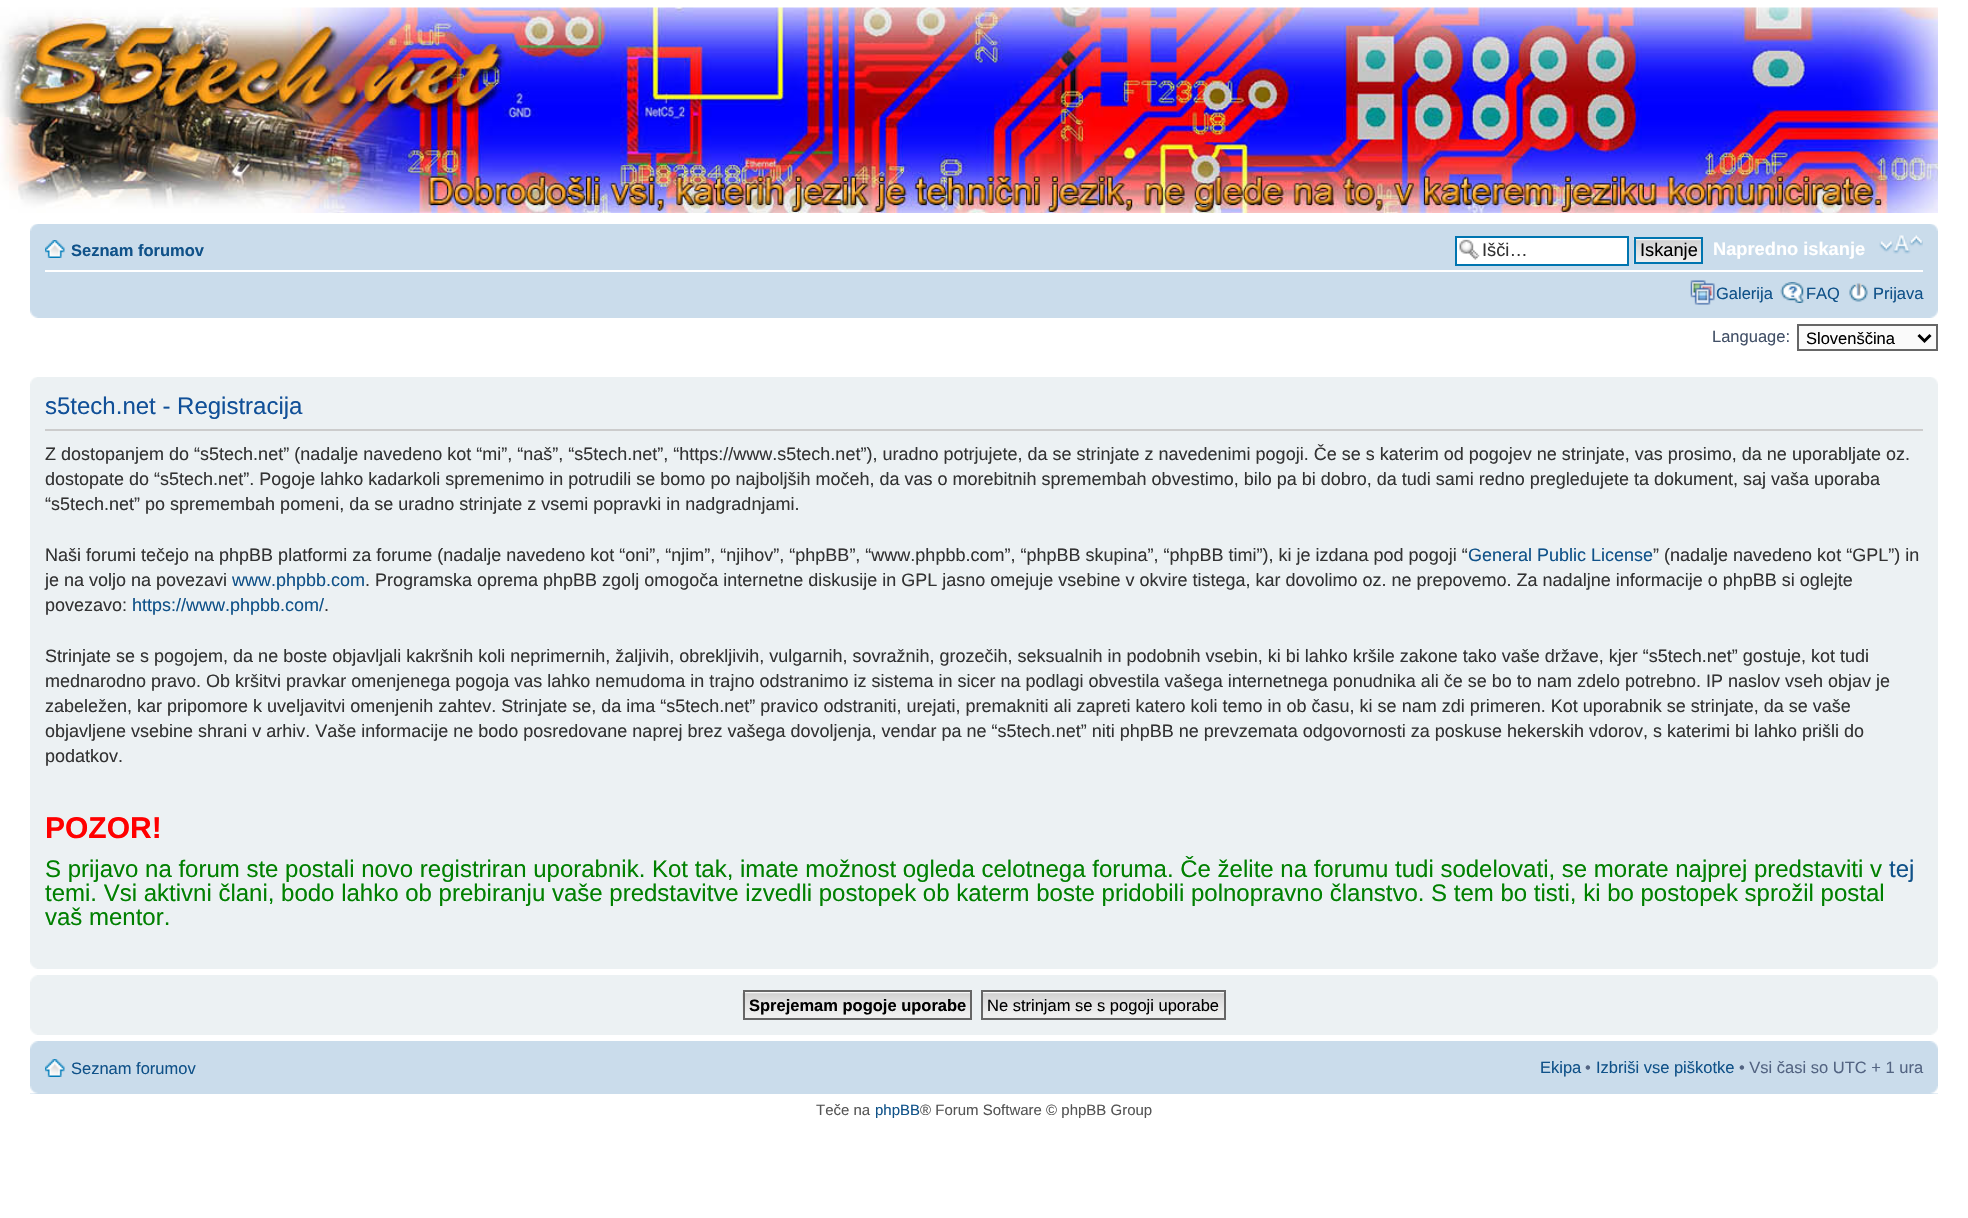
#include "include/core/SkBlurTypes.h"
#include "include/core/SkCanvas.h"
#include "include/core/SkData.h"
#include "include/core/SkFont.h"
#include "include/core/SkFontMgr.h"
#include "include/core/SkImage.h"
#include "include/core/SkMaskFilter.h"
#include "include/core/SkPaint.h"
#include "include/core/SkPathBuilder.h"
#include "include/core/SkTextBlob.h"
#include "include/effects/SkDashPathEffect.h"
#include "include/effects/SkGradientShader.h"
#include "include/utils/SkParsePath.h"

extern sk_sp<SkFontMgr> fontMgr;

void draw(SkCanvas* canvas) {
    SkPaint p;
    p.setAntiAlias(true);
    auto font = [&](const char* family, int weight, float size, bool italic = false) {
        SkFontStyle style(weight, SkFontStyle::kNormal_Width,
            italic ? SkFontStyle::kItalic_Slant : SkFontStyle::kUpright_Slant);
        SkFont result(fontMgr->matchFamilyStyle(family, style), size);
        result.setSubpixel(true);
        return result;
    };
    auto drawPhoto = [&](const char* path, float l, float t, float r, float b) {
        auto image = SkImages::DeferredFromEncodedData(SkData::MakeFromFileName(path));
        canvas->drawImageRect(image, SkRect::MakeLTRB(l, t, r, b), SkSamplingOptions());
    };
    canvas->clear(0xFFFFFFFF);
    drawPhoto("media/1.png", 0, 7, 1938, 213);
    p.setColor(0xFFCADCEB);
    canvas->drawRect(SkRect::MakeLTRB(30, 224, 1938, 318), p);
    drawPhoto("media/2.png", 30, 224, 38, 231);
    drawPhoto("media/3.png", 1930, 224, 1938, 231);
    p.setColor(0xFFFFFFFF);
    canvas->drawRect(SkRect::MakeLTRB(45, 270, 1923, 272), p);
    drawPhoto("media/4.png", 45, 240, 65, 258);
    auto font1 = font("Liberation Sans", 700, 16.5f);
    p.setColor(0xFF105289);
    canvas->drawString("Seznam forumov", 71, 256, font1, p);
    p.setColor(0xFFFFFFFF);
    canvas->drawRect(SkRect::MakeLTRB(1457, 238, 1627, 264), p);
    drawPhoto("media/5.png", 1459, 239, 1480, 260);
    p.setStyle(SkPaint::kStroke_Style);
    p.setStrokeWidth(2);
    p.setColor(0xFF0075B0);
    canvas->drawRect(SkRect::MakeLTRB(1456, 237, 1628, 265), p);
    auto font2 = font("Liberation Sans", 400, 18.25f);
    p.setStyle(SkPaint::kFill_Style);
    p.setColor(0xFF333333);
    canvas->drawString("Išči…", 1482, 256, font2, p);
    drawPhoto("media/6.png", 1633, 238, 1701, 264);
    p.setStyle(SkPaint::kStroke_Style);
    p.setColor(0xFF0075B0);
    canvas->drawRect(SkRect::MakeLTRB(1635, 238, 1702, 263), p);
    p.setStyle(SkPaint::kFill_Style);
    p.setColor(0xFF000000);
    canvas->drawString("Iskanje", 1640, 256, font2, p);
    auto font3 = font("Liberation Sans", 700, 18.25f);
    p.setColor(0xFFFFFFFF);
    canvas->drawString("Napredno iskanje", 1713, 255, font3, p);
    drawPhoto("media/7.png", 1879, 235, 1923, 254);
    drawPhoto("media/8.png", 1690, 280, 1715, 305);
    auto font4 = font("Liberation Sans", 400, 16.5f);
    p.setColor(0xFF105289);
    canvas->drawString("Galerija", 1716, 299, font4, p);
    drawPhoto("media/9.png", 1780, 282, 1805, 303);
    canvas->drawString("FAQ", 1806, 299, font4, p);
    drawPhoto("media/10.png", 1849, 283, 1868, 302);
    canvas->drawString("Prijava", 1873, 299, font4, p);
    drawPhoto("media/11.png", 30, 310, 38, 318);
    drawPhoto("media/12.png", 1930, 310, 1938, 318);
    p.setColor(0xFF425067);
    canvas->drawString("Language:", 1712, 342, font4, p);
    p.setColor(0xFFFAFAFA);
    canvas->drawRect(SkRect::MakeLTRB(1798, 325, 1937, 350), p);
    p.setStyle(SkPaint::kStroke_Style);
    p.setColor(0xFF666666);
    canvas->drawRect(SkRect::MakeLTRB(1798, 325, 1937, 350), p);
    p.setStrokeWidth(3);
    p.setColor(0xFF000000);
    canvas->drawPath(SkPathBuilder().moveTo(1918.5f, 335).lineTo(1924.5f, 341).lineTo(1930.5f, 335).detach(), p);
    p.setStyle(SkPaint::kFill_Style);
    canvas->drawString("Slovenščina", 1806, 344, font4, p);
    p.setColor(0xFFECF1F3);
    canvas->drawRect(SkRect::MakeLTRB(30, 377, 1938, 969), p);
    drawPhoto("media/13.png", 30, 377, 37, 384);
    drawPhoto("media/14.png", 1931, 377, 1938, 384);
    p.setColor(0xFFCCCCCC);
    canvas->drawRect(SkRect::MakeLTRB(45, 429, 1923, 431), p);
    auto font5 = font("Liberation Sans", 400, 24);
    p.setColor(0xFF115098);
    canvas->drawString("s5tech.net - Registracija", 45, 414, font5, p);
    auto font6 = font("Liberation Sans", 400, 18);
    p.setColor(0xFF333333);
    {
        const struct { const char* s; float x, y; } items[] = {
            {"Z dostopanjem do “s5tech.net” (nadalje navedeno kot “mi”, “naš”, “s5tech.net”, “https://www.s5tech.net”), uradno potrjujete, da se strinjate z navedenimi pogoji. Če se s katerim od pogojev ne strinjate, vas prosimo, da ne uporabljate oz.", 45, 460},
            {"dostopate do “s5tech.net”. Pogoje lahko kadarkoli spremenimo in potrudili se bomo po najboljših močeh, da vas o morebitnih spremembah obvestimo, bilo pa bi dobro, da tudi sami redno pregledujete ta dokument, saj vaša uporaba", 45, 485},
            {"“s5tech.net” po spremembah pomeni, da se uradno strinjate z vsemi popravki in nadgradnjami.", 45, 510},
            {"Naši forumi tečejo na phpBB platformi za forume (nadalje navedeno kot “oni”, “njim”, “njihov”, “phpBB”, “www.phpbb.com”, “phpBB skupina”, “phpBB timi”), ki je izdana pod pogoji “", 45, 561},
        };
        for (auto [s, x, y] : items) {
            canvas->drawString(s, x, y, font6, p);
        }
    }
    p.setColor(0xFF105289);
    canvas->drawString("General Public License", 1468, 561, font6, p);
    p.setColor(0xFF333333);
    canvas->drawString("” (nadalje navedeno kot “GPL”) in", 1653, 561, font6, p);
    canvas->drawString("je na voljo na povezavi", 45, 586, font6, p);
    p.setColor(0xFF105289);
    canvas->drawString("www.phpbb.com", 232, 586, font6, p);
    p.setColor(0xFF333333);
    canvas->drawString(". Programska oprema phpBB zgolj omogoča internetne diskusije in GPL jasno omejuje vsebine v okvire tistega, kar dovolimo oz. ne prepovemo. Za nadaljne informacije o phpBB si oglejte", 365, 586, font6, p);
    canvas->drawString("povezavo:", 45, 611, font6, p);
    p.setColor(0xFF105289);
    canvas->drawString("https://www.phpbb.com/", 132, 611, font6, p);
    p.setColor(0xFF333333);
    {
        const struct { const char* s; float x, y; } items[] = {
            {".", 324, 611},
            {"Strinjate se s pogojem, da ne boste objavljali kakršnih koli neprimernih, žaljivih, obrekljivih, vulgarnih, sovražnih, grozečih, seksualnih in podobnih vsebin, ki bi lahko kršile zakone tako vaše države, kjer “s5tech.net” gostuje, kot tudi", 45, 662},
            {"mednarodno pravo. Ob kršitvi pravkar omenjenega pogoja vas lahko nemudoma in trajno odstranimo iz sistema in sicer na podlagi obvestila vašega internetnega ponudnika ali če se bo to nam zdelo potrebno. IP naslov vseh objav je", 45, 687},
            {"zabeležen, kar pripomore k uveljavitvi omenjenih zahtev. Strinjate se, da ima “s5tech.net” pravico odstraniti, urejati, premakniti ali zapreti katero koli temo in ob času, ki se nam zdi primeren. Kot uporabnik se strinjate, da se vaše", 45, 712},
            {"objavljene vsebine shrani v arhiv. Vaše informacije ne bodo posredovane naprej brez vašega dovoljenja, vendar pa ne “s5tech.net” niti phpBB ne prevzemata odgovornosti za poskuse hekerskih vdorov, s katerimi bi lahko prišli do", 45, 737},
            {"podatkov.", 45, 762},
        };
        for (auto [s, x, y] : items) {
            canvas->drawString(s, x, y, font6, p);
        }
    }
    auto font7 = font("Liberation Sans", 700, 30);
    p.setColor(0xFFFF0000);
    canvas->drawString("POZOR!", 45, 838, font7, p);
    p.setColor(0xFF008000);
    canvas->drawString("S prijavo na forum ste postali novo registriran uporabnik. Kot tak, imate možnost ogleda celotnega foruma. Če želite na forumu tudi sodelovati, se morate najprej predstaviti v", 45, 877, font5, p);
    p.setColor(0xFF105289);
    canvas->drawString("tej", 1889, 877, font5, p);
    p.setColor(0xFF008000);
    canvas->drawString("temi. Vsi aktivni člani, bodo lahko ob prebiranju vaše predstavitve izvedli postopek ob katerm boste pridobili polnopravno članstvo. S tem bo tisti, ki bo postopek sprožil postal", 45, 901, font5, p);
    canvas->drawString("vaš mentor.", 45, 925, font5, p);
    drawPhoto("media/15.png", 30, 962, 37, 969);
    drawPhoto("media/16.png", 1931, 962, 1938, 969);
    p.setColor(0xFFECF1F3);
    canvas->drawRect(SkRect::MakeLTRB(30, 975, 1938, 1035), p);
    drawPhoto("media/17.png", 30, 975, 37, 982);
    drawPhoto("media/18.png", 1931, 975, 1938, 982);
    drawPhoto("media/19.png", 742, 991, 970, 1020);
    p.setStyle(SkPaint::kStroke_Style);
    p.setStrokeWidth(2);
    p.setColor(0xFF666666);
    canvas->drawRect(SkRect::MakeLTRB(744, 991, 971, 1019), p);
    p.setStyle(SkPaint::kFill_Style);
    p.setColor(0xFF000000);
    canvas->drawString("Sprejemam pogoje uporabe", 749, 1011, font1, p);
    p.setColor(0xFFFAFAFA);
    canvas->drawRect(SkRect::MakeLTRB(983, 992, 1224, 993), p);
    drawPhoto("media/20.png", 983, 993, 1224, 1018);
    p.setStyle(SkPaint::kStroke_Style);
    p.setColor(0xFF666666);
    canvas->drawRect(SkRect::MakeLTRB(982, 991, 1225, 1019), p);
    p.setStyle(SkPaint::kFill_Style);
    p.setColor(0xFF000000);
    canvas->drawString("Ne strinjam se s pogoji uporabe", 987, 1011, font4, p);
    drawPhoto("media/15.png", 30, 1028, 37, 1035);
    drawPhoto("media/16.png", 1931, 1028, 1938, 1035);
    p.setColor(0xFFCADCEB);
    canvas->drawRect(SkRect::MakeLTRB(30, 1041, 1938, 1094), p);
    drawPhoto("media/21.png", 30, 1041, 38, 1049);
    drawPhoto("media/22.png", 1930, 1041, 1938, 1049);
    drawPhoto("media/4.png", 45, 1059, 65, 1077);
    p.setColor(0xFF105289);
    canvas->drawString("Seznam forumov", 71, 1074, font4, p);
    canvas->drawString("Ekipa", 1540, 1073, font4, p);
    p.setColor(0xFF536482);
    canvas->drawString("•", 1585, 1073, font4, p);
    p.setColor(0xFF105289);
    canvas->drawString("Izbriši vse piškotke", 1596, 1073, font4, p);
    p.setColor(0xFF536482);
    canvas->drawString("• Vsi časi so UTC + 1 ura", 1739, 1073, font4, p);
    drawPhoto("media/23.png", 30, 1086, 38, 1094);
    drawPhoto("media/24.png", 1930, 1086, 1938, 1094);
    auto font8 = font("Liberation Sans", 400, 15);
    p.setColor(0xFF555555);
    canvas->drawString("Teče na", 816, 1115, font8, p);
    p.setColor(0xFF105289);
    canvas->drawString("phpBB", 875, 1115, font8, p);
    p.setColor(0xFF555555);
    canvas->drawString("® Forum Software © phpBB Group", 920, 1115, font8, p);
}
